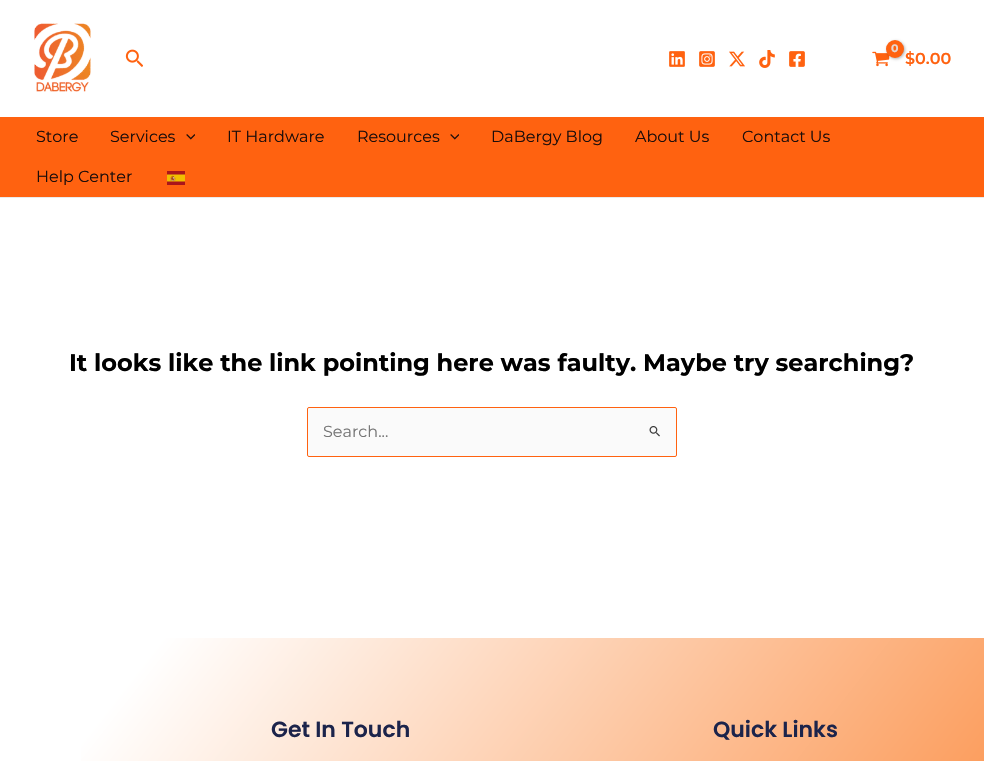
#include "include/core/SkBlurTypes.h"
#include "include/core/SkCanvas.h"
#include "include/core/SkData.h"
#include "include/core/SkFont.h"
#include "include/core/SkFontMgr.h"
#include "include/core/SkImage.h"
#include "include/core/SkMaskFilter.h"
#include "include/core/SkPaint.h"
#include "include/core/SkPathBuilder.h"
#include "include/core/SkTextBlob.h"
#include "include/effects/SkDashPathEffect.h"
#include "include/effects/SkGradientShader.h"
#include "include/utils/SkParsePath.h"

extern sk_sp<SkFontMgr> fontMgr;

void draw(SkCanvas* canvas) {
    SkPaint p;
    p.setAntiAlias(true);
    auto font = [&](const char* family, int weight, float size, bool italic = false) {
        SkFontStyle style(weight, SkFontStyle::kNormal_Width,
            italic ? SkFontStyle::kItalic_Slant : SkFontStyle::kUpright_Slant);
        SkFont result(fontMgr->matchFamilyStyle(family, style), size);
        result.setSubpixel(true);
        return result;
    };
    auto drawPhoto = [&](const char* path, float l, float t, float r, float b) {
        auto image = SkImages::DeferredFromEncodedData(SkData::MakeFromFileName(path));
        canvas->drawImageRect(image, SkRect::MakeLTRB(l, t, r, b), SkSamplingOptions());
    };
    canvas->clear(0xFFFFFFFF);
    drawPhoto("media/1.png", 34, 23, 91, 92);
    drawPhoto("media/2.png", 125, 49, 143, 67);
    drawPhoto("media/3.png", 669, 51, 685, 67);
    drawPhoto("media/4.png", 699, 51, 715, 67);
    drawPhoto("media/5.png", 729, 51, 745, 67);
    drawPhoto("media/6.png", 759, 50, 775, 68);
    drawPhoto("media/7.png", 789, 51, 805, 67);
    drawPhoto("media/8.png", 872, 51, 890, 67);
    p.setColor(0x4D000000);
    p.setMaskFilter(SkMaskFilter::MakeBlur(kNormal_SkBlurStyle, 1.5f));
    canvas->drawRoundRect(SkRect::MakeLTRB(887, 41, 905, 59), 9, 9, p);
    p.setMaskFilter(nullptr);
    p.setColor(0xFFFF6210);
    canvas->drawCircle(895, 49, 9, p);
    auto font1 = font("Montserrat", 700, 11);
    p.setColor(0xFFE5D7D1);
    canvas->drawString("0", 891, 52, font1, p);
    auto font2 = font("Montserrat", 600, 16);
    p.setColor(0xFFFF6210);
    canvas->drawString("$0.00", 905, 64, font2, p);
    canvas->drawRect(SkRect::MakeLTRB(0, 117, 984, 197), p);
    p.setColor(0xFFEAEAEA);
    canvas->drawRect(SkRect::MakeLTRB(0, 197, 984, 198), p);
    auto font3 = font("Montserrat", 400, 16);
    p.setColor(0xFF1C0D0A);
    canvas->drawString("Store", 36, 142, font3, p);
    canvas->drawString("Services", 110, 142, font3, p);
    drawPhoto("media/9.png", 186, 134, 195, 140);
    canvas->drawString("IT Hardware", 227, 142, font3, p);
    canvas->drawString("Resources", 357, 142, font3, p);
    drawPhoto("media/9.png", 450, 134, 459, 140);
    {
        const struct { const char* s; float x, y; } items[] = {
            {"DaBergy Blog", 491, 142},
            {"About Us", 635, 142},
            {"Contact Us", 742, 142},
            {"Help Center", 36, 182},
        };
        for (auto [s, x, y] : items) {
            canvas->drawString(s, x, y, font3, p);
        }
    }
    drawPhoto("media/10.png", 167, 171, 185, 185);
    auto font4 = font("Montserrat", 700, 24);
    p.setColor(0xFF000000);
    canvas->drawString("It looks like the link pointing here was faulty. Maybe try searching?", 69, 371, font4, p);
    p.setColor(0xFFFAFAFA);
    canvas->drawRoundRect(SkRect::MakeLTRB(307.5f, 407.5f, 676.5f, 456.5f), 1.5f, 1.5f, p);
    p.setStyle(SkPaint::kStroke_Style);
    p.setStrokeWidth(1);
    p.setColor(0xFFFF6210);
    canvas->drawRoundRect(SkRect::MakeLTRB(307.5f, 407.5f, 676.5f, 456.5f), 1.5f, 1.5f, p);
    p.setStyle(SkPaint::kFill_Style);
    p.setColor(0xFF757575);
    canvas->drawString("Search...", 323, 437, font3, p);
    drawPhoto("media/11.png", 649, 426, 660, 437);
    {
        const SkColor colors[] = {0xFFFFFFFF, 0xFFFA6602};
        const float stops[] = {0.1f, 1};
        const SkPoint ends[] = {{-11, 652}, {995, 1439}};
        p.setShader(SkGradientShader::MakeLinear(ends, colors, stops, 2, SkTileMode::kClamp));
        p.setAlpha(255);
    }
    canvas->drawRect(SkRect::MakeLTRB(81, 638, 984, 761), p);
    auto font5 = font("Poppins", 600, 22);
    p.setShader(nullptr);
    p.setColor(0xFF1C244B);
    canvas->drawString("Get In Touch", 271, 737, font5, p);
    canvas->drawString("Quick Links", 713, 737, font5, p);
}
